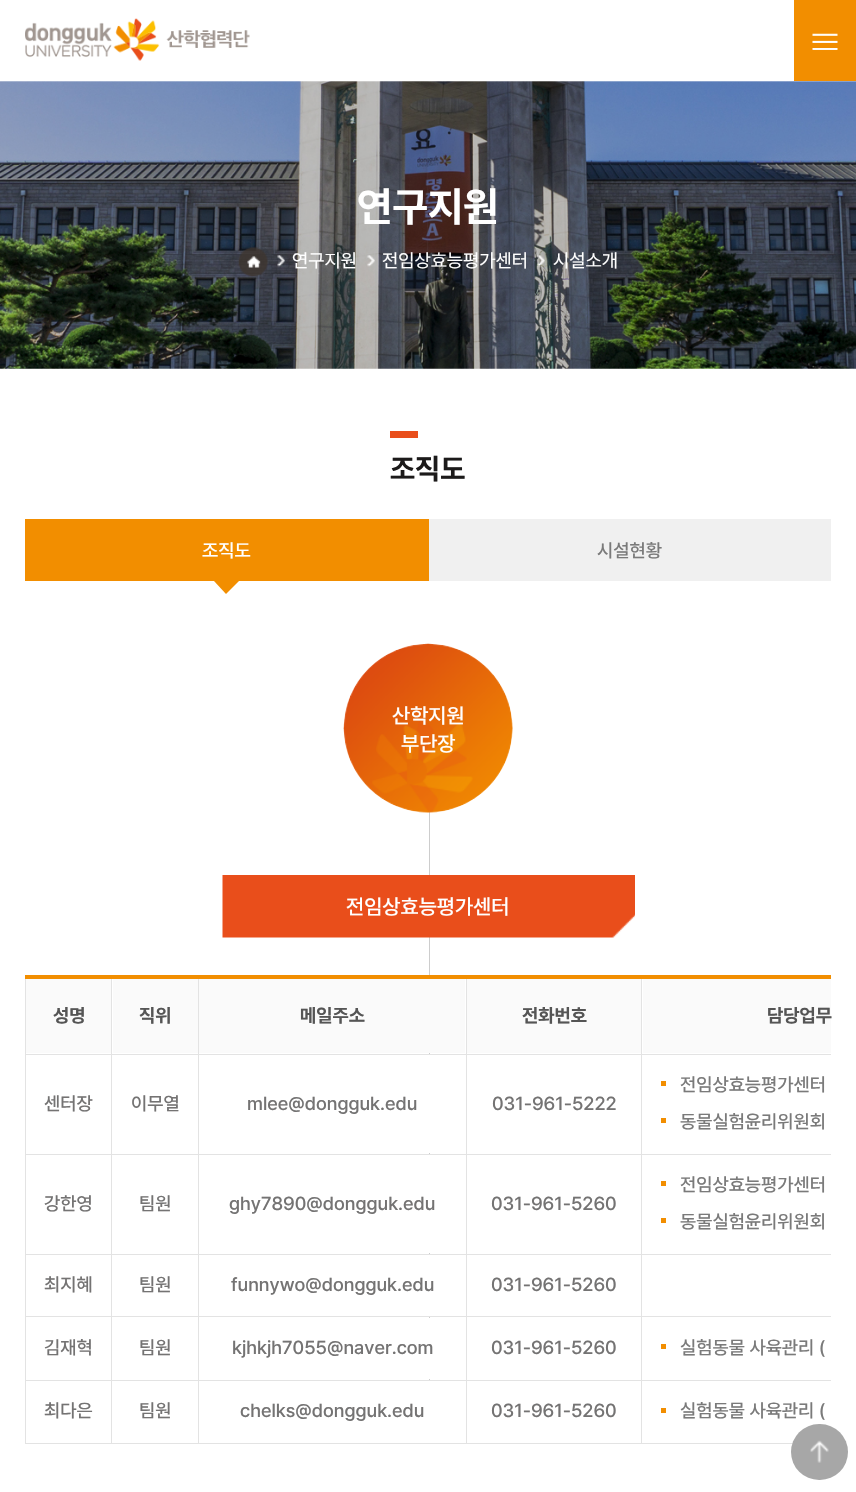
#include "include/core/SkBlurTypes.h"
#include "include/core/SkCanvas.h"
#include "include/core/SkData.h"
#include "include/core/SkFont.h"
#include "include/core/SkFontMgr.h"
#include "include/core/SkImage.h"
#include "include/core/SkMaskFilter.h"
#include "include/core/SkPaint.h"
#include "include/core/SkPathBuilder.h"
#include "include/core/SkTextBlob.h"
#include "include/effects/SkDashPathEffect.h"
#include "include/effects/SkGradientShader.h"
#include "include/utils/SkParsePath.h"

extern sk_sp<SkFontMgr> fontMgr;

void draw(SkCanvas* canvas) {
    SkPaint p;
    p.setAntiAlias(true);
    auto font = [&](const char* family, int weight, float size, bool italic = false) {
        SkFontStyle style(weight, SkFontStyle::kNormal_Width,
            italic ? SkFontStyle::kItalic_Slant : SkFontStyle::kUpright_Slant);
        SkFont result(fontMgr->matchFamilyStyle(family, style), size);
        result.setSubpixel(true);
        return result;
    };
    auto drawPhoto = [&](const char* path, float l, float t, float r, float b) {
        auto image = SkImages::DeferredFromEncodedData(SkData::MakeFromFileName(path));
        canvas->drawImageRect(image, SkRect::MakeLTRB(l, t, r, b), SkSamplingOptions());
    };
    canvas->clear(0xFFFFFFFF);
    drawPhoto("media/1.png", 25, 18, 250, 61);
    p.setColor(0xFFF28E00);
    canvas->drawRect(SkRect::MakeLTRB(794, 0, 856, 81), p);
    drawPhoto("media/2.png", 812, 33, 838, 50);
    drawPhoto("media/3.png", 0, 81, 856, 369);
    auto font1 = font("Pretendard", 700, 41);
    p.setColor(0xFFFFFFFF);
    canvas->drawString("연구지원", 357, 221, font1, p);
    drawPhoto("media/4.png", 238, 247, 268, 277);
    drawPhoto("media/5.png", 277, 255, 285, 267);
    auto font2 = font("Pretendard", 400, 18.75f);
    canvas->drawString("연구지원", 292, 267, font2, p);
    drawPhoto("media/6.png", 367, 255, 375, 267);
    canvas->drawString("전임상효능평가센터", 382, 267, font2, p);
    drawPhoto("media/7.png", 537, 255, 545, 267);
    canvas->drawString("시설소개", 553, 267, font2, p);
    p.setColor(0xFFE94E1B);
    canvas->drawRect(SkRect::MakeLTRB(390, 431, 418, 438), p);
    auto font3 = font("Pretendard", 700, 29);
    p.setColor(0xFF1C1A1A);
    canvas->drawString("조직도", 390, 479, font3, p);
    p.setColor(0xFFF28E00);
    canvas->drawRect(SkRect::MakeLTRB(25, 519, 429, 581), p);
    auto font4 = font("Pretendard", 500, 18.75f);
    p.setColor(0xFFFFFFFF);
    canvas->drawString("조직도", 202, 557, font4, p);
    p.setColor(0xFFF28E00);
    canvas->drawPath(SkPathBuilder().moveTo(214, 581).lineTo(239, 581).lineTo(226, 594).close().detach(), p);
    p.setColor(0xFFF0F0F0);
    canvas->drawRect(SkRect::MakeLTRB(429, 519, 831, 581), p);
    p.setColor(0xFF7A7A7A);
    canvas->drawString("시설현황", 597, 557, font4, p);
    p.setColor(0xFFCDCDCD);
    canvas->drawRect(SkRect::MakeLTRB(429, 644, 430, 1380), p);
    drawPhoto("media/8.png", 343, 643, 513, 813);
    auto font5 = font("Pretendard", 500, 21);
    p.setColor(0xFFFFFFFF);
    canvas->drawString("산학지원", 392, 723, font5, p);
    canvas->drawString("부단장", 401, 751, font5, p);
    drawPhoto("media/9.png", 222, 875, 635, 938);
    canvas->drawString("전임상효능평가센터", 346, 914, font5, p);
    {
        const struct { float l, t, r, b; SkColor color; } items[] = {
            {25, 975, 26, 1444, 0xFFE3E3E3},
            {25, 975, 831, 979, 0xFFF28E00},
            {26, 979, 111, 1053, 0xFFFAFAFA},
            {641, 1443, 793, 1444, 0xFFE3E3E3},
            {641, 1380, 642, 1444, 0xFFE3E3E3},
            {641, 1380, 831, 1381, 0xFFE3E3E3},
            {641, 1316, 642, 1381, 0xFFE3E3E3},
            {641, 1316, 831, 1317, 0xFFE3E3E3},
            {641, 1254, 642, 1318, 0xFFE3E3E3},
            {641, 1254, 831, 1255, 0xFFE3E3E3},
            {641, 1154, 642, 1255, 0xFFE3E3E3},
            {641, 1154, 831, 1155, 0xFFE3E3E3},
            {641, 1054, 642, 1155, 0xFFE3E3E3},
            {641, 1054, 831, 1055, 0xFFE3E3E3},
            {641, 979, 642, 1055, 0xFFE3E3E3},
            {466, 1443, 643, 1444, 0xFFE3E3E3},
            {466, 1380, 467, 1444, 0xFFE3E3E3},
            {466, 1380, 643, 1381, 0xFFE3E3E3},
            {466, 1316, 467, 1381, 0xFFE3E3E3},
            {466, 1316, 643, 1317, 0xFFE3E3E3},
            {466, 1254, 467, 1318, 0xFFE3E3E3},
            {466, 1254, 643, 1255, 0xFFE3E3E3},
            {466, 1154, 467, 1255, 0xFFE3E3E3},
            {466, 1154, 643, 1155, 0xFFE3E3E3},
            {466, 1054, 467, 1155, 0xFFE3E3E3},
            {466, 1054, 643, 1055, 0xFFE3E3E3},
            {466, 979, 467, 1055, 0xFFE3E3E3},
            {198, 1443, 468, 1444, 0xFFE3E3E3},
            {198, 1380, 199, 1444, 0xFFE3E3E3},
            {198, 1380, 468, 1381, 0xFFE3E3E3},
            {198, 1316, 199, 1381, 0xFFE3E3E3},
            {198, 1316, 468, 1317, 0xFFE3E3E3},
            {198, 1254, 199, 1318, 0xFFE3E3E3},
            {198, 1254, 468, 1255, 0xFFE3E3E3},
            {198, 1154, 199, 1255, 0xFFE3E3E3},
            {198, 1154, 468, 1155, 0xFFE3E3E3},
            {198, 1054, 199, 1155, 0xFFE3E3E3},
            {198, 1054, 468, 1055, 0xFFE3E3E3},
            {198, 979, 199, 1055, 0xFFE3E3E3},
            {111, 1443, 199, 1444, 0xFFE3E3E3},
            {111, 1380, 112, 1444, 0xFFE3E3E3},
            {111, 1380, 199, 1381, 0xFFE3E3E3},
            {111, 1316, 112, 1381, 0xFFE3E3E3},
            {111, 1316, 199, 1317, 0xFFE3E3E3},
            {111, 1254, 112, 1318, 0xFFE3E3E3},
            {111, 1254, 199, 1255, 0xFFE3E3E3},
            {111, 1154, 112, 1255, 0xFFE3E3E3},
            {111, 1154, 199, 1155, 0xFFE3E3E3},
            {111, 1054, 112, 1155, 0xFFE3E3E3},
            {111, 1054, 199, 1055, 0xFFE3E3E3},
            {111, 979, 112, 1055, 0xFFE3E3E3},
            {25, 1054, 113, 1055, 0xFFE3E3E3},
        };
        for (auto [l, t, r, b, color] : items) {
            p.setColor(color);
            canvas->drawRect(SkRect::MakeLTRB(l, t, r, b), p);
        }
    }
    auto font6 = font("Pretendard", 700, 18.75f);
    p.setColor(0xFF555555);
    canvas->drawString("성명", 53, 1022, font6, p);
    p.setColor(0xFFFAFAFA);
    canvas->drawRect(SkRect::MakeLTRB(113, 979, 198, 1053), p);
    p.setColor(0xFF555555);
    canvas->drawString("직위", 139, 1022, font6, p);
    p.setColor(0xFFFAFAFA);
    canvas->drawRect(SkRect::MakeLTRB(199, 979, 465, 1053), p);
    p.setColor(0xFF555555);
    canvas->drawString("메일주소", 300, 1022, font6, p);
    p.setColor(0xFFFAFAFA);
    canvas->drawRect(SkRect::MakeLTRB(467, 979, 641, 1053), p);
    p.setColor(0xFF555555);
    canvas->drawString("전화번호", 522, 1022, font6, p);
    p.setColor(0xFFFAFAFA);
    canvas->drawRect(SkRect::MakeLTRB(643, 979, 831, 1053), p);
    p.setColor(0xFF555555);
    canvas->drawString("담당업무", 767, 1022, font6, p);
    p.setColor(0xFFE3E3E3);
    canvas->drawRect(SkRect::MakeLTRB(25, 1154, 113, 1155), p);
    p.setColor(0xFF747373);
    canvas->drawString("센터장", 44, 1110, font4, p);
    canvas->drawString("이무열", 131, 1110, font4, p);
    p.setColor(0xFFFFFFFF);
    canvas->drawRect(SkRect::MakeLTRB(429, 1055, 430, 1153), p);
    p.setColor(0xFF747373);
    canvas->drawString("mlee@dongguk.edu", 247, 1110, font4, p);
    canvas->drawString("031-961-5222", 492, 1110, font4, p);
    p.setColor(0xFFF28E00);
    canvas->drawRect(SkRect::MakeLTRB(661, 1081, 666, 1086), p);
    p.setColor(0xFF7A7A7A);
    canvas->drawString("전임상효능평가센터", 680, 1091, font4, p);
    p.setColor(0xFFF28E00);
    canvas->drawRect(SkRect::MakeLTRB(661, 1118, 666, 1123), p);
    p.setColor(0xFF7A7A7A);
    canvas->drawString("동물실험윤리위원회", 680, 1128, font4, p);
    p.setColor(0xFFE3E3E3);
    canvas->drawRect(SkRect::MakeLTRB(25, 1254, 113, 1255), p);
    p.setColor(0xFF747373);
    canvas->drawString("강한영", 44, 1210, font4, p);
    canvas->drawString("팀원", 139, 1210, font4, p);
    p.setColor(0xFFFFFFFF);
    canvas->drawRect(SkRect::MakeLTRB(429, 1155, 430, 1253), p);
    p.setColor(0xFF747373);
    canvas->drawString("ghy7890@dongguk.edu", 229, 1210, font4, p);
    canvas->drawString("031-961-5260", 491, 1210, font4, p);
    p.setColor(0xFFF28E00);
    canvas->drawRect(SkRect::MakeLTRB(661, 1181, 666, 1186), p);
    p.setColor(0xFF7A7A7A);
    canvas->drawString("전임상효능평가센터", 680, 1191, font4, p);
    p.setColor(0xFFF28E00);
    canvas->drawRect(SkRect::MakeLTRB(661, 1218, 666, 1223), p);
    p.setColor(0xFF7A7A7A);
    canvas->drawString("동물실험윤리위원회", 680, 1228, font4, p);
    p.setColor(0xFFE3E3E3);
    canvas->drawRect(SkRect::MakeLTRB(25, 1316, 113, 1317), p);
    p.setColor(0xFF747373);
    canvas->drawString("최지혜", 44, 1291, font4, p);
    canvas->drawString("팀원", 139, 1291, font4, p);
    p.setColor(0xFFFFFFFF);
    canvas->drawRect(SkRect::MakeLTRB(429, 1255, 430, 1316), p);
    p.setColor(0xFF747373);
    canvas->drawString("funnywo@dongguk.edu", 231, 1291, font4, p);
    canvas->drawString("031-961-5260", 491, 1291, font4, p);
    p.setColor(0xFFE3E3E3);
    canvas->drawRect(SkRect::MakeLTRB(25, 1380, 113, 1381), p);
    p.setColor(0xFF747373);
    canvas->drawString("김재혁", 44, 1354, font4, p);
    canvas->drawString("팀원", 139, 1354, font4, p);
    p.setColor(0xFFFFFFFF);
    canvas->drawRect(SkRect::MakeLTRB(429, 1318, 430, 1379), p);
    p.setColor(0xFF747373);
    canvas->drawString("kjhkjh7055@naver.com", 232, 1354, font4, p);
    canvas->drawString("031-961-5260", 491, 1354, font4, p);
    p.setColor(0xFFF28E00);
    canvas->drawRect(SkRect::MakeLTRB(661, 1344, 666, 1349), p);
    p.setColor(0xFF7A7A7A);
    canvas->drawString("실험동물 사육관리 (", 680, 1354, font4, p);
    p.setColor(0xFFE3E3E3);
    canvas->drawRect(SkRect::MakeLTRB(25, 1443, 113, 1444), p);
    p.setColor(0xFF747373);
    {
        const struct { const char* s; float x, y; } items[] = {
            {"최다은", 44, 1417},
            {"팀원", 139, 1417},
            {"chelks@dongguk.edu", 240, 1417},
            {"031-961-5260", 491, 1417},
        };
        for (auto [s, x, y] : items) {
            canvas->drawString(s, x, y, font4, p);
        }
    }
    p.setColor(0xFFF28E00);
    canvas->drawRect(SkRect::MakeLTRB(661, 1408, 666, 1413), p);
    p.setColor(0xFF7A7A7A);
    canvas->drawString("실험동물 사육관리 (", 680, 1417, font4, p);
    p.setColor(0xFFA7A7A7);
    canvas->drawRoundRect(SkRect::MakeLTRB(791, 1424, 848, 1480), 28, 28, p);
    drawPhoto("media/10.png", 810, 1440, 829, 1463);
}
